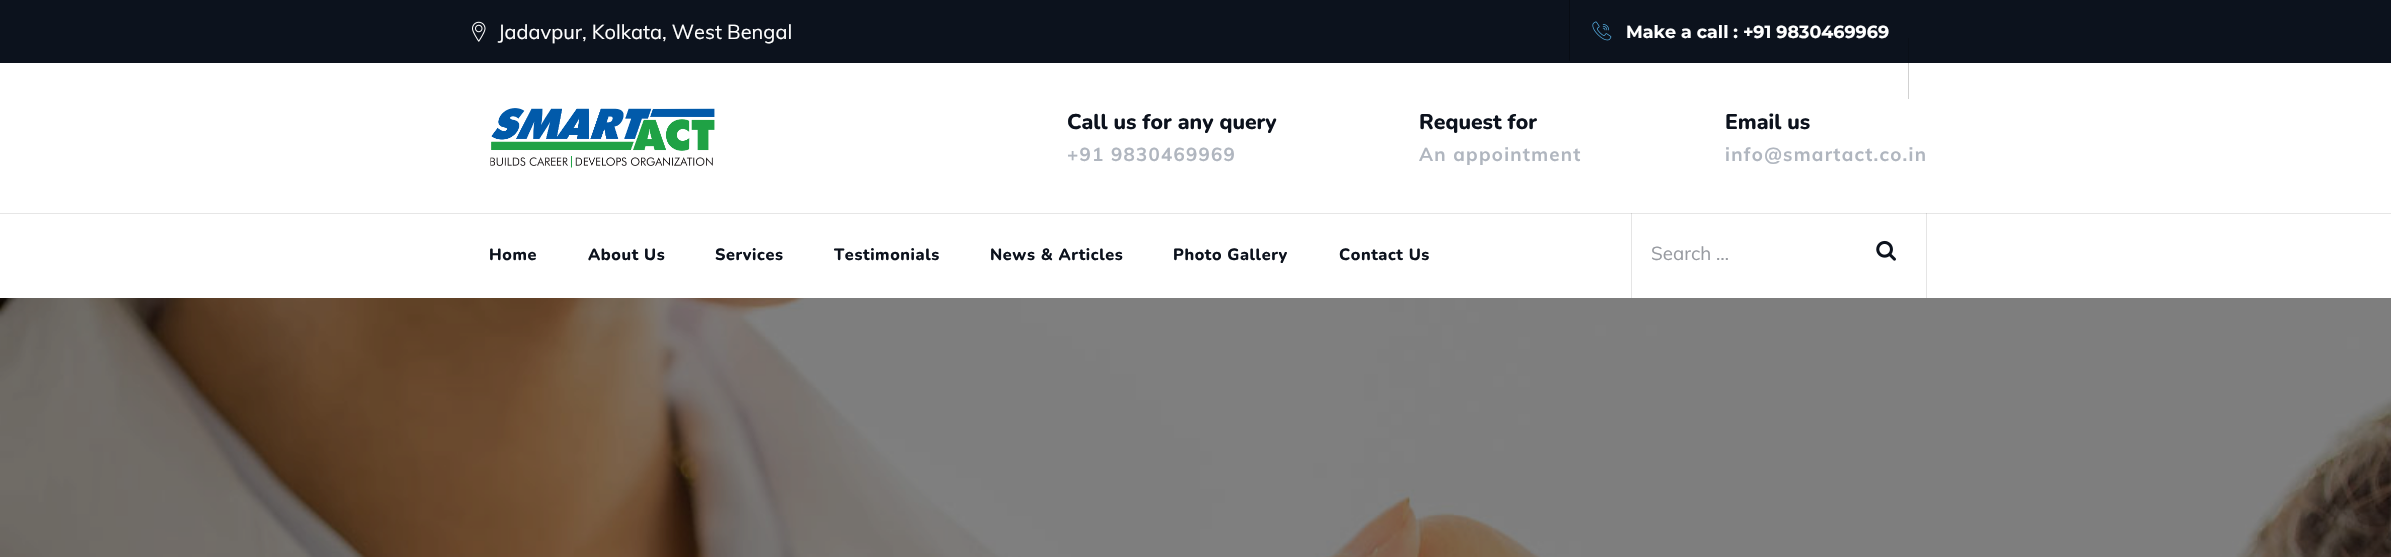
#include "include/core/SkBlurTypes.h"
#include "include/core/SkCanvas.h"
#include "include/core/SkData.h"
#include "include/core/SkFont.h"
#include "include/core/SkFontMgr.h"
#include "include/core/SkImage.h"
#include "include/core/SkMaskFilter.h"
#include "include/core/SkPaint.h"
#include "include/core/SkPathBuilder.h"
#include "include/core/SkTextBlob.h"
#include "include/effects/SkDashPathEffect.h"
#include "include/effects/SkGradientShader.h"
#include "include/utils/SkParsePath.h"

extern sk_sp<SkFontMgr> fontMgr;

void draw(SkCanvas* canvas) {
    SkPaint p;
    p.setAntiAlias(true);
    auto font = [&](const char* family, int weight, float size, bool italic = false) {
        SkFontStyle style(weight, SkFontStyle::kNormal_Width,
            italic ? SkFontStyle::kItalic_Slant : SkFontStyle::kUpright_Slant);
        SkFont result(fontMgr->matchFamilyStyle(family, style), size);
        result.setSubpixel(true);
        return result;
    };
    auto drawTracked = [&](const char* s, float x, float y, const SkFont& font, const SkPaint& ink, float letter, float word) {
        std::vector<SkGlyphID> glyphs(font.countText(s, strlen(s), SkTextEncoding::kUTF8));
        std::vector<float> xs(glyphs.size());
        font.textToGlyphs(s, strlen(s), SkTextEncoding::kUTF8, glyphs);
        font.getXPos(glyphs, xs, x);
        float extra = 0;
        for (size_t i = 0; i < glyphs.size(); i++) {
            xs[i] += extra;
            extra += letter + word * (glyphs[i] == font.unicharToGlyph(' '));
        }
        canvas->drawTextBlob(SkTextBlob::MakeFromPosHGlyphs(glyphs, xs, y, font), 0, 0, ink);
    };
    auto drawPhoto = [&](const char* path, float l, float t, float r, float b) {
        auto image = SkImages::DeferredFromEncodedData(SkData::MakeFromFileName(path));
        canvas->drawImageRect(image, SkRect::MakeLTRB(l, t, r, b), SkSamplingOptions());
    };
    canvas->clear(0xFFFFFFFF);
    {
        const struct { float l, t, r, b; SkColor color; } items[] = {
            {1908, 63, 1909, 99, 0xFFD1D1D1},
            {0, 0, 2391, 63, 0xFF0C121D},
            {1908, 38, 1909, 63, 0xFF0A0F18},
        };
        for (auto [l, t, r, b, color] : items) {
            p.setColor(color);
            canvas->drawRect(SkRect::MakeLTRB(l, t, r, b), p);
        }
    }
    drawPhoto("media/1.png", 472, 21, 486, 42);
    auto font1 = font("Muli", 400, 20);
    p.setColor(0xFFFFFFFF);
    canvas->drawString("Jadavpur, Kolkata, West Bengal", 498, 39, font1, p);
    p.setColor(0xFF080C14);
    canvas->drawRect(SkRect::MakeLTRB(1569, 0, 1570, 61), p);
    drawPhoto("media/2.png", 1592, 21, 1612, 41);
    auto font2 = font("Montserrat", 700, 17.5f);
    p.setColor(0xFFFFFFFF);
    canvas->drawString("Make a call : +91 9830469969", 1626, 38, font2, p);
    drawPhoto("media/3.png", 490, 108, 715, 168);
    auto font3 = font("Nunito", 800, 21.25f);
    p.setColor(0xFF0C121D);
    canvas->drawString("Call us for any query", 1067, 129, font3, p);
    auto font4 = font("Muli", 700, 18.75f);
    p.setColor(0xFFB0B6BF);
    drawTracked("+91 9830469969", 1067, 161, font4, p, 1.25f, 0);
    p.setColor(0xFF0C121D);
    canvas->drawString("Request for", 1419, 129, font3, p);
    p.setColor(0xFFB0B6BF);
    drawTracked("An appointment", 1419, 161, font4, p, 1.25f, 0);
    p.setColor(0xFF0C121D);
    canvas->drawString("Email us", 1725, 129, font3, p);
    p.setColor(0xFFB0B6BF);
    drawTracked("info@smartact.co.in", 1725, 161, font4, p, 1.25f, 0);
    p.setColor(0xFFE6E6E6);
    canvas->drawRect(SkRect::MakeLTRB(0, 213, 2391, 214), p);
    auto font5 = font("Nunito", 800, 16.25f);
    p.setColor(0xFF0C121D);
    {
        const struct { const char* s; float x, y; } items[] = {
            {"Home", 489, 260},
            {"About Us", 588, 260},
            {"Services", 715, 260},
            {"Testimonials", 834, 260},
            {"News & Articles", 990, 260},
            {"Photo Gallery", 1173, 260},
            {"Contact Us", 1339, 260},
        };
        for (auto [s, x, y] : items) {
            drawTracked(s, x, y, font5, p, 0.6f, 0);
        }
    }
    p.setColor(0x1A000000);
    canvas->drawRect(SkRect::MakeLTRB(1926, 213, 1927, 298), p);
    canvas->drawRect(SkRect::MakeLTRB(1631, 213, 1632, 298), p);
    auto font6 = font("Muli", 400, 18.75f);
    p.setColor(0xFF989BA1);
    canvas->drawString("Search …", 1651, 260, font6, p);
    drawPhoto("media/4.png", 1876, 240, 1896, 261);
    drawPhoto("media/5.png", 0, 298, 2391, 557);
}
